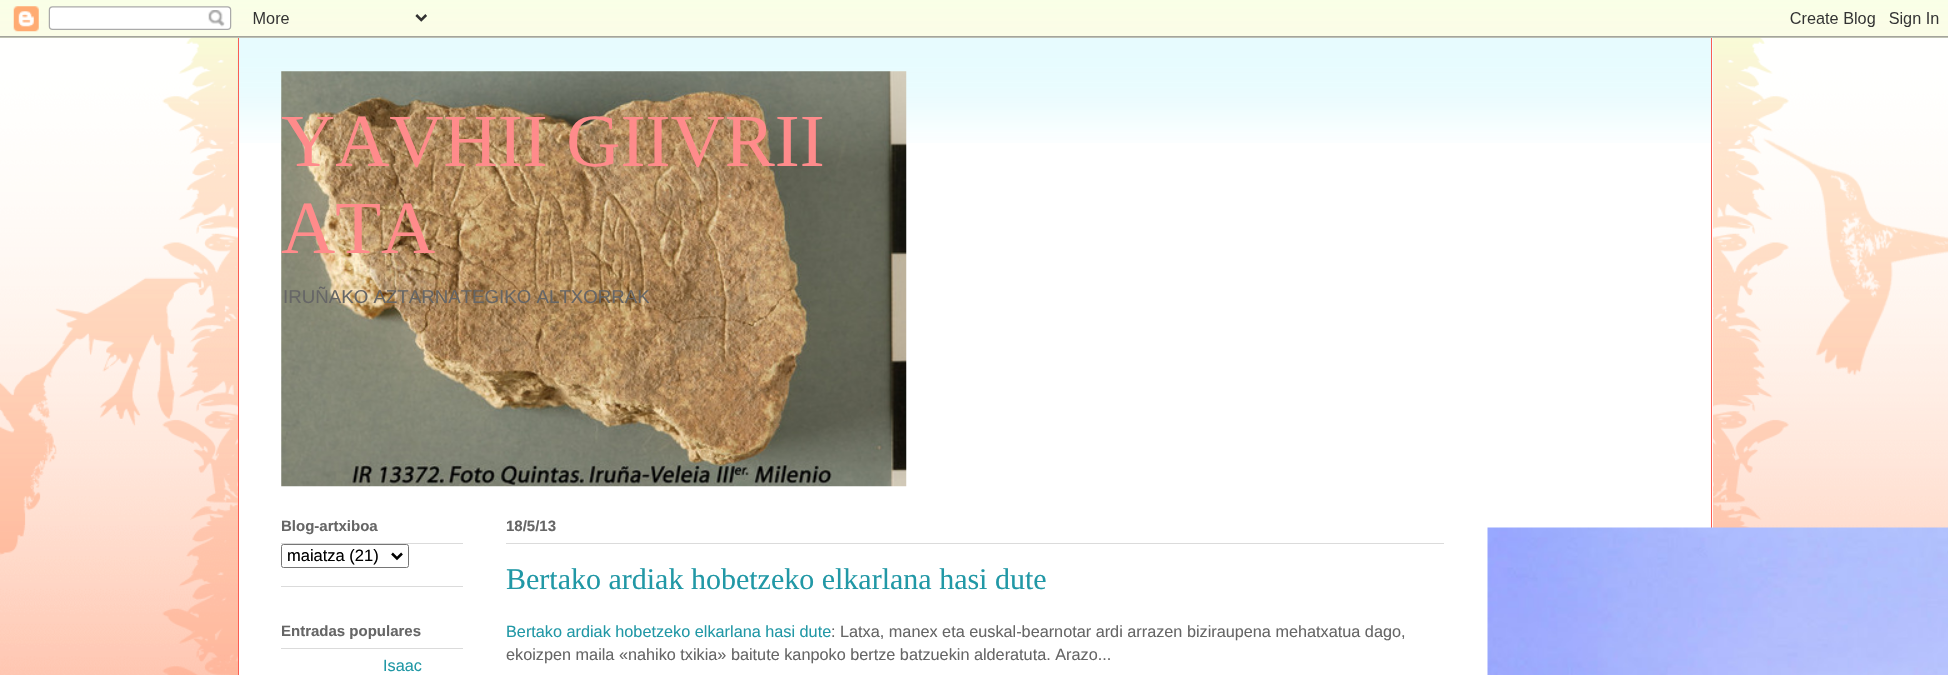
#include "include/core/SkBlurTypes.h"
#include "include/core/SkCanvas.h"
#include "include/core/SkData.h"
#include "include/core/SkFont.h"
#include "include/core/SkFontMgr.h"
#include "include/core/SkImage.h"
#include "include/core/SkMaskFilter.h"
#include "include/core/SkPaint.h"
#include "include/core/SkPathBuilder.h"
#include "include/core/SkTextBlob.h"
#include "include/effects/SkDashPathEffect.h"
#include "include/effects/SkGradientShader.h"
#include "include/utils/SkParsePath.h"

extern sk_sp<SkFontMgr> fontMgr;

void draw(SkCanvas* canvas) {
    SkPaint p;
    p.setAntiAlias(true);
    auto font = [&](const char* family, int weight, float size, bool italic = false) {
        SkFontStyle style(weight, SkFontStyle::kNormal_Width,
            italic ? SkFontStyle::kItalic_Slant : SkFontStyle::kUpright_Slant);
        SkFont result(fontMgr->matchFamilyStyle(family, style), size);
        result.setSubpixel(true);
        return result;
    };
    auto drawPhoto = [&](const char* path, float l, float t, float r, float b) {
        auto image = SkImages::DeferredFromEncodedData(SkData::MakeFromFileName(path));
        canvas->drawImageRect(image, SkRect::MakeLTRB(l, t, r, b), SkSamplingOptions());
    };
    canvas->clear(0xFFFFFFFF);
    drawPhoto("media/1.png", 0, 0, 1948, 675);
    drawPhoto("media/3.png", 0, 37, 1713, 675);
    p.setColor(0xFFFFFFFF);
    canvas->drawRect(SkRect::MakeLTRB(239, 38, 1713, 675), p);
    drawPhoto("media/4.png", 237, 37, 1713, 143);
    drawPhoto("media/5.png", 1713, 37, 1948, 528);
    drawPhoto("media/2.png", 0, 0, 1948, 38);
    p.setColor(0xFFFB5E53);
    canvas->drawRect(SkRect::MakeLTRB(1711, 38, 1712, 528), p);
    canvas->drawRect(SkRect::MakeLTRB(238, 38, 239, 675), p);
    drawPhoto("media/6.png", 281, 71, 907, 487);
    auto font1 = font("Liberation Serif", 400, 75);
    p.setColor(0xFFFF8B8B);
    canvas->drawString("YAVHII GIIVRII", 281, 166, font1, p);
    canvas->drawString("ATA", 281, 253, font1, p);
    auto font2 = font("Liberation Sans", 400, 18.7f);
    p.setColor(0xFF666666);
    canvas->drawString("IRUÑAKO AZTARNATEGIKO ALTXORRAK", 283, 303, font2, p);
    p.setColor(0xFFDBDBDB);
    canvas->drawRect(SkRect::MakeLTRB(281, 586, 463, 587), p);
    canvas->drawRect(SkRect::MakeLTRB(281, 543, 463, 544), p);
    auto font3 = font("Liberation Sans", 700, 15);
    p.setColor(0xFF666666);
    canvas->drawString("Blog-artxiboa", 281, 531, font3, p);
    p.setStyle(SkPaint::kStroke_Style);
    p.setStrokeWidth(1);
    p.setColor(0xFF767676);
    canvas->drawRoundRect(SkRect::MakeLTRB(281.5f, 544.5f, 408.5f, 567.5f), 2, 2, p);
    p.setStrokeWidth(2.5f);
    p.setColor(0xFF000000);
    canvas->drawPath(SkPathBuilder().moveTo(392, 553.5f).lineTo(397, 558.5f).lineTo(402, 553.5f).detach(), p);
    auto font4 = font("Liberation Sans", 400, 16.5f);
    p.setStyle(SkPaint::kFill_Style);
    canvas->drawString("maiatza (21)", 287, 561, font4, p);
    p.setColor(0xFFDBDBDB);
    canvas->drawRect(SkRect::MakeLTRB(281, 648, 463, 649), p);
    p.setColor(0xFF666666);
    canvas->drawString("Entradas populares", 281, 636, font3, p);
    auto font5 = font("Liberation Sans", 400, 16.25f);
    p.setColor(0xFF2198A6);
    canvas->drawString("Isaac", 383, 671, font5, p);
    p.setColor(0xFFDBDBDB);
    canvas->drawRect(SkRect::MakeLTRB(506, 543, 1444, 544), p);
    p.setColor(0xFF666666);
    canvas->drawString("18/5/13", 506, 531, font3, p);
    auto font6 = font("Liberation Serif", 400, 30);
    p.setColor(0xFF2198A6);
    canvas->drawString("Bertako ardiak hobetzeko elkarlana hasi dute", 506, 589, font6, p);
    canvas->drawString("Bertako ardiak hobetzeko elkarlana hasi dute", 506, 637, font5, p);
    p.setColor(0xFF666666);
    canvas->drawString(": Latxa, manex eta euskal-bearnotar ardi arrazen biziraupena mehatxatua dago,", 831, 637, font5, p);
    canvas->drawString("ekoizpen maila «nahiko txikia» baitute kanpoko bertze batzuekin alderatuta. Arazo...", 506, 660, font5, p);
    drawPhoto("media/7.png", 1487, 527, 1948, 675);
}
